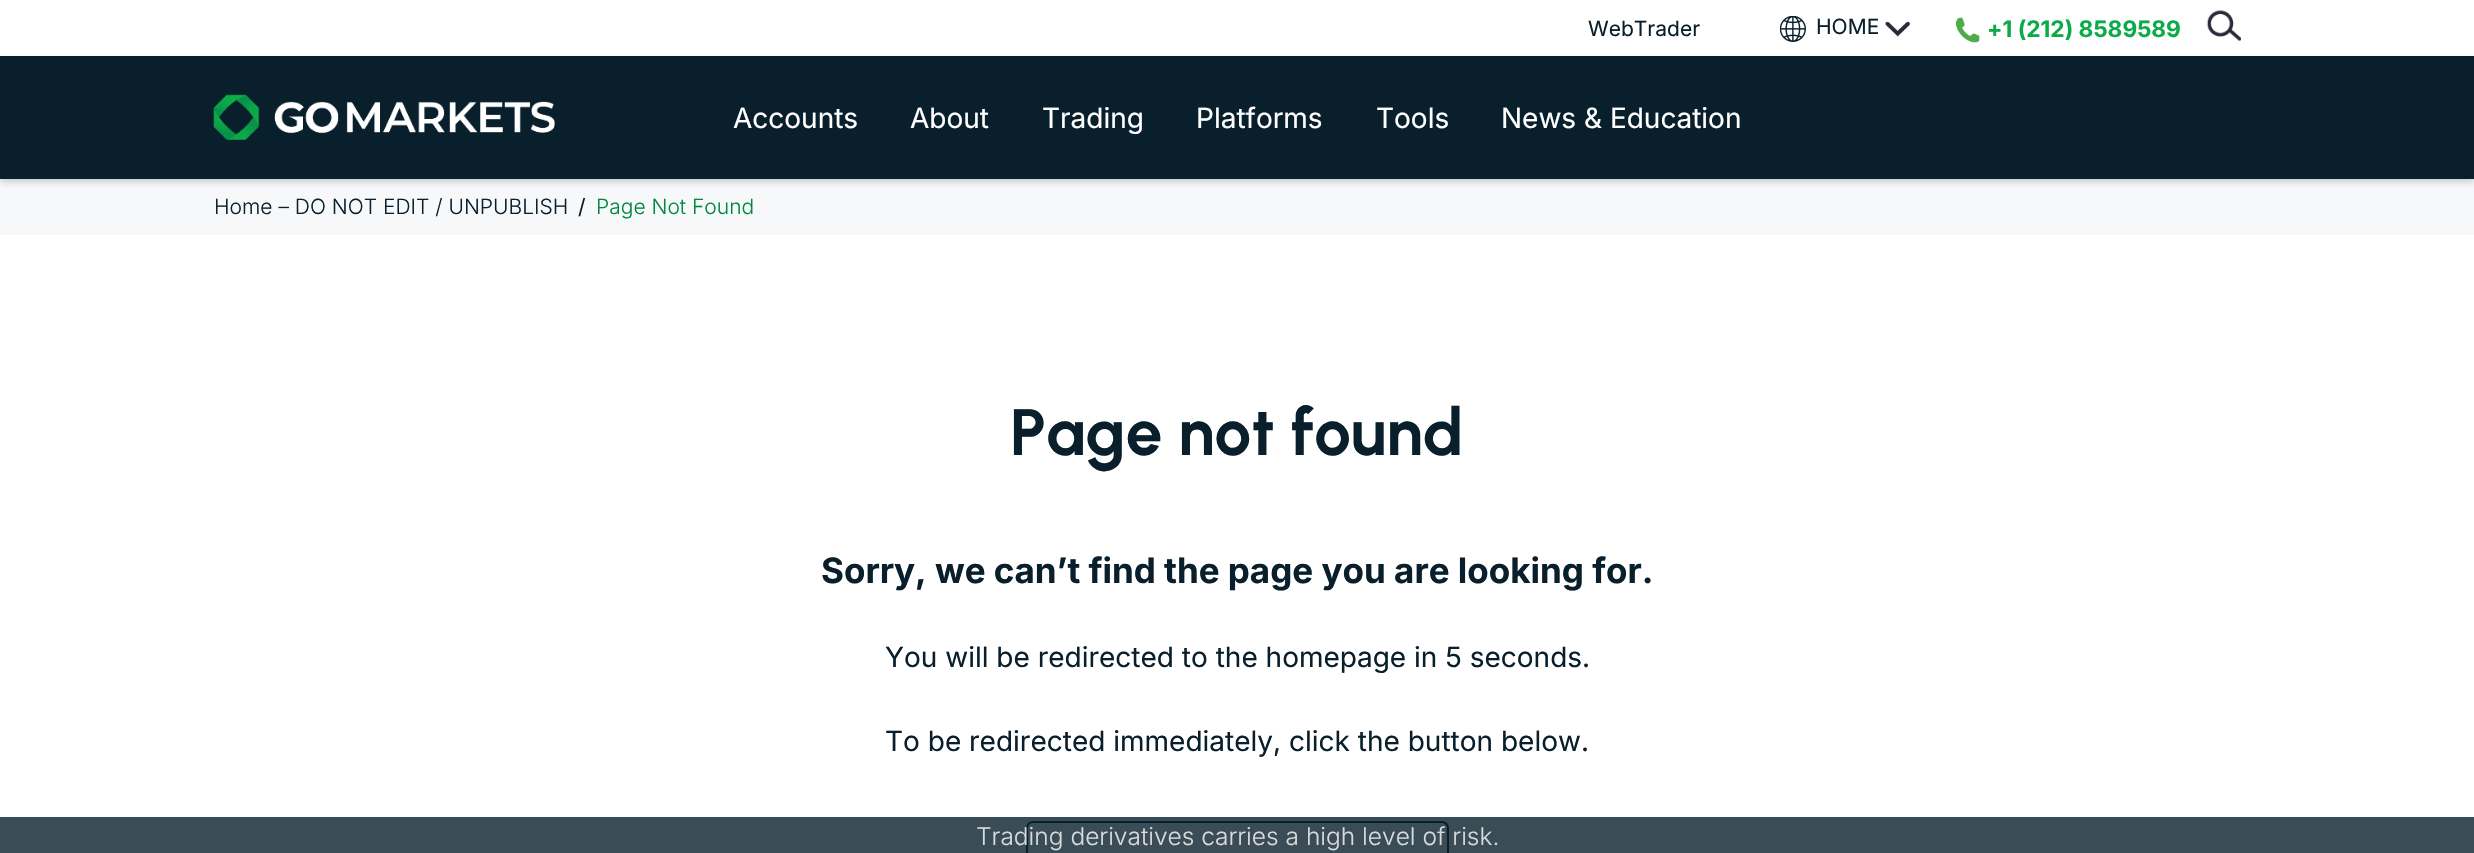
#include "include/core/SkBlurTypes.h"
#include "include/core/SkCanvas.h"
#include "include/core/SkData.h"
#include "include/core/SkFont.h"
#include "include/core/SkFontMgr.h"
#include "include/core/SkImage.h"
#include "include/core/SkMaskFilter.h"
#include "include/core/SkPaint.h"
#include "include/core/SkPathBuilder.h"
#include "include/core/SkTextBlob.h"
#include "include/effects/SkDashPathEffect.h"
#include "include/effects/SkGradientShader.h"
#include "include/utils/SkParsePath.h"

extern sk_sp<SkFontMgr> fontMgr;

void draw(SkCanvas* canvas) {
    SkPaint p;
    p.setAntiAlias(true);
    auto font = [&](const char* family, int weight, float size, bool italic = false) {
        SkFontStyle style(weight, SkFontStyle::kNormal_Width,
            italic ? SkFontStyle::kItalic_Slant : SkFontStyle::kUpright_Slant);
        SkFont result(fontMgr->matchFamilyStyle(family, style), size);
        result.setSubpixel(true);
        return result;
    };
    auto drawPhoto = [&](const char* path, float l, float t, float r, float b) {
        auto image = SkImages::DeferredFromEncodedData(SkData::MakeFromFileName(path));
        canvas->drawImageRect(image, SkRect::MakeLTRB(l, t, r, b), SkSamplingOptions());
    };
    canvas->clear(0xFFFFFFFF);
    p.setColor(0xFF3A4C56);
    canvas->drawRect(SkRect::MakeLTRB(0, 817, 2474, 853), p);
    auto font1 = font("Inter", 400, 21);
    p.setColor(0xFF091F2C);
    canvas->drawString("WebTrader", 1588, 36, font1, p);
    drawPhoto("media/1.png", 1780, 16, 1806, 42);
    canvas->drawString("HOME", 1816, 34, font1, p);
    drawPhoto("media/2.png", 1885, 21, 1911, 37);
    drawPhoto("media/3.png", 1955, 17, 1980, 43);
    auto font2 = font("Inter", 700, 22.75f);
    p.setColor(0xFF0BAB47);
    canvas->drawString("+1 (212) 8589589", 1987, 37, font2, p);
    drawPhoto("media/4.png", 2207, 10, 2241, 42);
    p.setColor(0xFFF7F8FA);
    canvas->drawRect(SkRect::MakeLTRB(0, 179, 2474, 235), p);
    p.setColor(0x330C1018);
    p.setMaskFilter(SkMaskFilter::MakeBlur(kNormal_SkBlurStyle, 3.5f));
    canvas->drawRect(SkRect::MakeLTRB(0, 60, 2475, 182), p);
    p.setMaskFilter(nullptr);
    p.setColor(0xFF091F2C);
    canvas->drawRect(SkRect::MakeLTRB(0, 56, 2474, 179), p);
    drawPhoto("media/5.png", 213, 94, 555, 140);
    auto font3 = font("Inter", 400, 28);
    p.setColor(0xFFFFFFFF);
    {
        const struct { const char* s; float x, y; } items[] = {
            {"Accounts", 733, 128},
            {"About", 910, 128},
            {"Trading", 1042, 128},
            {"Platforms", 1196, 128},
            {"Tools", 1376, 128},
            {"News & Education", 1501, 128},
        };
        for (auto [s, x, y] : items) {
            canvas->drawString(s, x, y, font3, p);
        }
    }
    auto font4 = font("Inter", 300, 21);
    p.setColor(0xFF091F2C);
    canvas->drawString("Home – DO NOT EDIT / UNPUBLISH", 214, 214, font4, p);
    canvas->drawString("/", 578, 214, font1, p);
    p.setColor(0xFF00893E);
    canvas->drawString("Page Not Found", 596, 214, font4, p);
    auto font5 = font("Urbanist", 700, 65.5f);
    p.setColor(0xFF091F2C);
    canvas->drawString("Page not found", 1010, 455, font5, p);
    auto font6 = font("Inter", 700, 35);
    canvas->drawString("Sorry, we can’t find the page you are looking for.", 821, 583, font6, p);
    canvas->drawString("You will be redirected to the homepage in 5 seconds.", 885, 667, font3, p);
    canvas->drawString("To be redirected immediately, click the button below.", 885, 751, font3, p);
    p.setStyle(SkPaint::kStroke_Style);
    p.setStrokeWidth(2);
    canvas->drawRoundRect(SkRect::MakeLTRB(1027, 822, 1448, 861), 6, 6, p);
    auto font7 = font("Inter", 300, 24.5f);
    p.setStyle(SkPaint::kFill_Style);
    p.setColor(0xFFD8DBDD);
    canvas->drawString("Trading derivatives carries a high level of risk.", 976, 845, font7, p);
}
